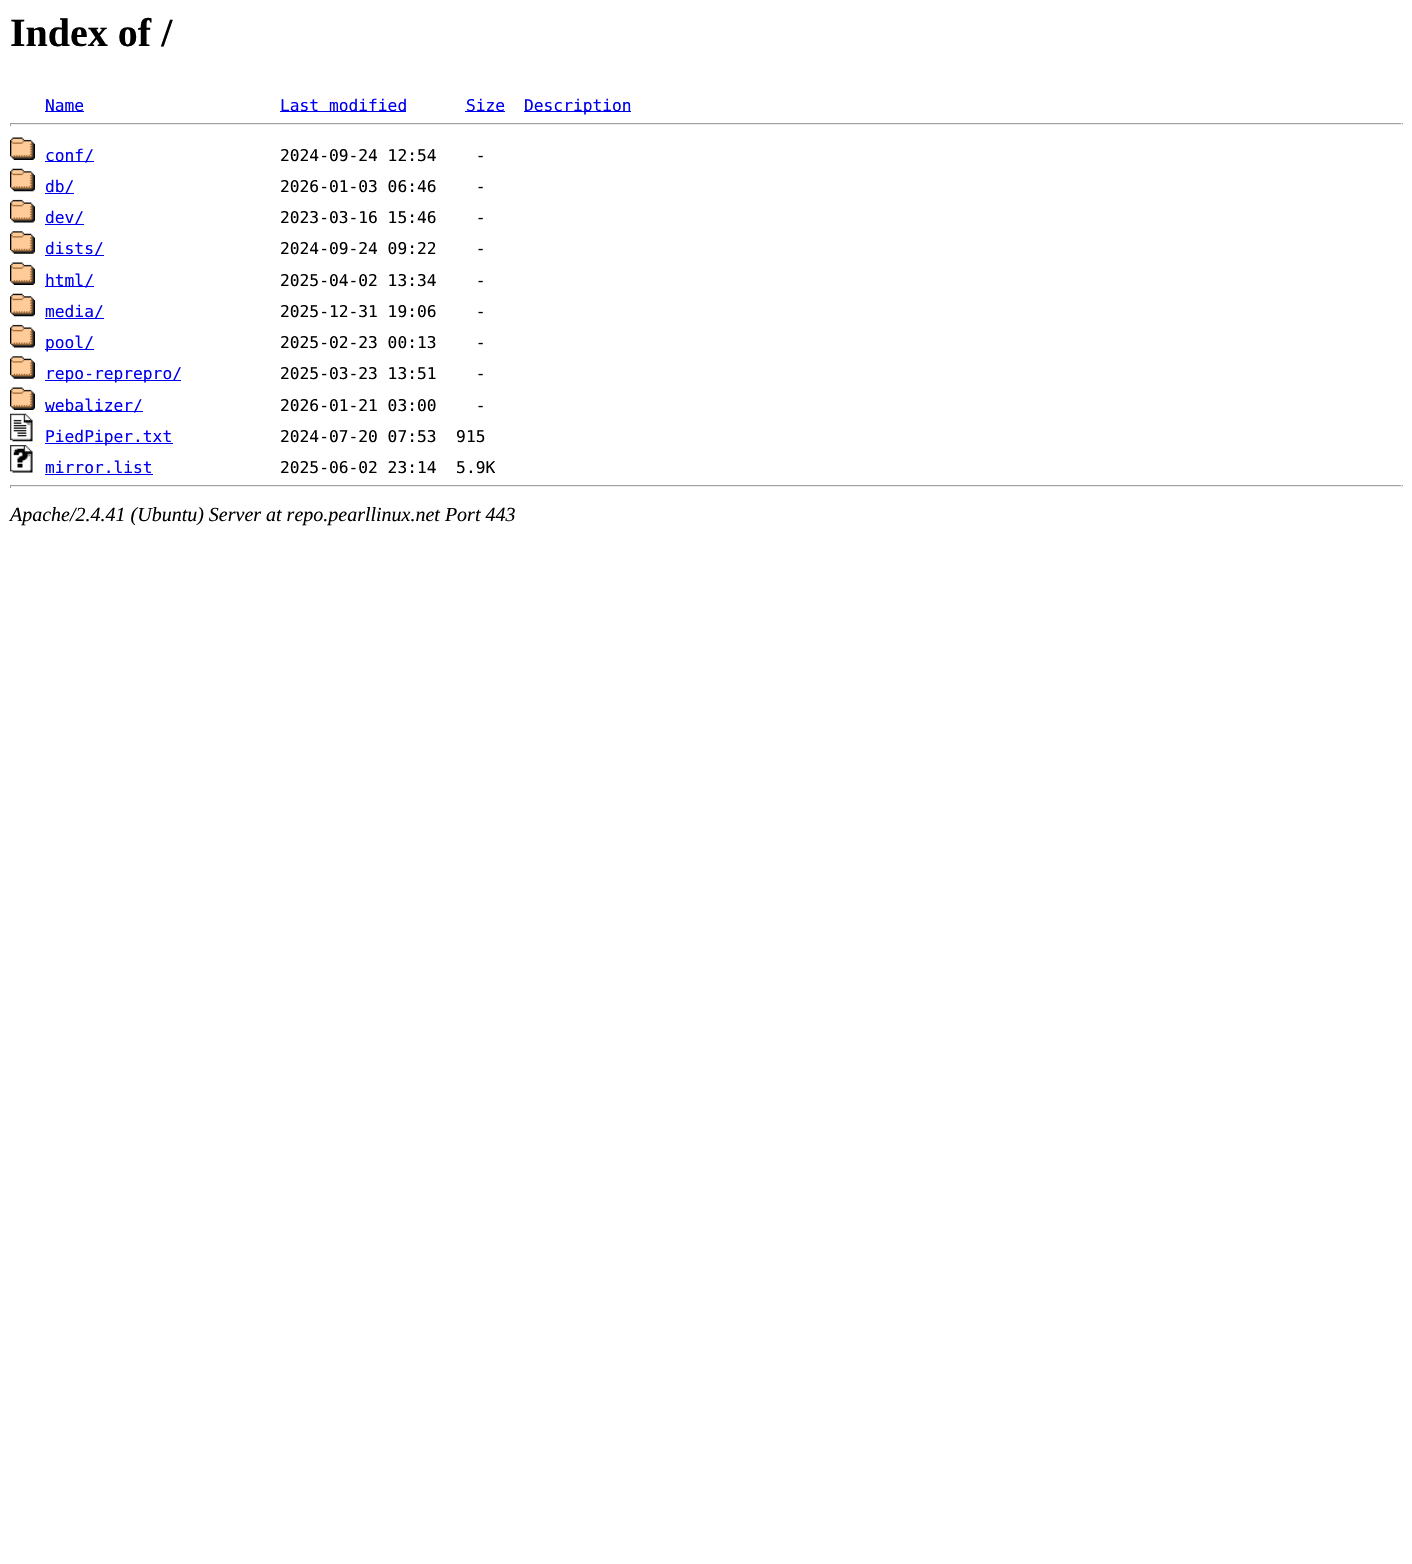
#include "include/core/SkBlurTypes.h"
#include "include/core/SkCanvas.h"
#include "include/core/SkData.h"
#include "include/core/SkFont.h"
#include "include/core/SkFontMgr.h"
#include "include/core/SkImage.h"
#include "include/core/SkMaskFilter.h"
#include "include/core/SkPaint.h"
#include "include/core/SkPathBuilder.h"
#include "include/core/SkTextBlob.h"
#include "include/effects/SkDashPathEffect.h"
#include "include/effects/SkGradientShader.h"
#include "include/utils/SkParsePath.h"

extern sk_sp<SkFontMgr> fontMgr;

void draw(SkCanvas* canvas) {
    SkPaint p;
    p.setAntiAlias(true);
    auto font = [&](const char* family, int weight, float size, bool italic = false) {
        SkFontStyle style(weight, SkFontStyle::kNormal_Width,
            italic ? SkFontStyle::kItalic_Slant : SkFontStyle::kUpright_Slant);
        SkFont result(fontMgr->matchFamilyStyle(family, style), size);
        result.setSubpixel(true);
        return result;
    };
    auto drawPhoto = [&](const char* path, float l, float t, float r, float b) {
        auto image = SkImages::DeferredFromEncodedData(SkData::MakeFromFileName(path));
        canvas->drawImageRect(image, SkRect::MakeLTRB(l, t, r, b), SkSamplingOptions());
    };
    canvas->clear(0xFFFFFFFF);
    auto font1 = font("Liberation Serif", 700, 40);
    p.setColor(0xFF000000);
    canvas->drawString("Index of /", 10, 46, font1, p);
    p.setColor(0xFF0000EE);
    canvas->drawRect(SkRect::MakeLTRB(45, 111, 84, 112), p);
    auto font2 = font("DejaVu Sans Mono", 400, 16.25f);
    canvas->drawString("Name", 45, 111, font2, p);
    canvas->drawRect(SkRect::MakeLTRB(280, 111, 406, 112), p);
    canvas->drawString("Last modified", 280, 111, font2, p);
    canvas->drawRect(SkRect::MakeLTRB(465, 111, 505, 112), p);
    canvas->drawString("Size", 466, 111, font2, p);
    canvas->drawRect(SkRect::MakeLTRB(524, 111, 631, 112), p);
    canvas->drawString("Description", 524, 111, font2, p);
    {
        const struct { float l, t, r, b; SkColor color; } items[] = {
            {10, 123, 1403, 124, 0xFF9F9F9F},
            {1401, 123, 1402, 126, 0xFFEEEEEE},
            {10, 124, 1403, 125, 0xFFEEEEEE},
            {10, 123, 11, 126, 0xFF9F9F9F},
        };
        for (auto [l, t, r, b, color] : items) {
            p.setColor(color);
            canvas->drawRect(SkRect::MakeLTRB(l, t, r, b), p);
        }
    }
    drawPhoto("media/1.png", 10, 137, 35, 160);
    p.setColor(0xFF0000EE);
    canvas->drawRect(SkRect::MakeLTRB(45, 161, 94, 162), p);
    canvas->drawString("conf/", 45, 161, font2, p);
    p.setColor(0xFF000000);
    canvas->drawString("2024-09-24 12:54    -", 280, 161, font2, p);
    drawPhoto("media/2.png", 10, 168, 35, 192);
    p.setColor(0xFF0000EE);
    canvas->drawRect(SkRect::MakeLTRB(45, 193, 74, 194), p);
    canvas->drawString("db/", 45, 192, font2, p);
    p.setColor(0xFF000000);
    canvas->drawString("2026-01-03 06:46    -", 280, 192, font2, p);
    drawPhoto("media/3.png", 10, 199, 35, 223);
    p.setColor(0xFF0000EE);
    canvas->drawRect(SkRect::MakeLTRB(45, 224, 84, 225), p);
    canvas->drawString("dev/", 45, 223, font2, p);
    p.setColor(0xFF000000);
    canvas->drawString("2023-03-16 15:46    -", 280, 223, font2, p);
    drawPhoto("media/4.png", 10, 231, 35, 254);
    p.setColor(0xFF0000EE);
    canvas->drawRect(SkRect::MakeLTRB(45, 255, 104, 256), p);
    canvas->drawString("dists/", 45, 254, font2, p);
    p.setColor(0xFF000000);
    canvas->drawString("2024-09-24 09:22    -", 280, 254, font2, p);
    drawPhoto("media/1.png", 10, 262, 35, 285);
    p.setColor(0xFF0000EE);
    canvas->drawRect(SkRect::MakeLTRB(45, 286, 94, 287), p);
    canvas->drawString("html/", 45, 286, font2, p);
    p.setColor(0xFF000000);
    canvas->drawString("2025-04-02 13:34    -", 280, 286, font2, p);
    drawPhoto("media/5.png", 10, 293, 35, 317);
    p.setColor(0xFF0000EE);
    canvas->drawRect(SkRect::MakeLTRB(45, 318, 104, 319), p);
    canvas->drawString("media/", 45, 317, font2, p);
    p.setColor(0xFF000000);
    canvas->drawString("2025-12-31 19:06    -", 280, 317, font2, p);
    drawPhoto("media/3.png", 10, 324, 35, 348);
    p.setColor(0xFF0000EE);
    canvas->drawRect(SkRect::MakeLTRB(45, 349, 94, 350), p);
    canvas->drawString("pool/", 45, 348, font2, p);
    p.setColor(0xFF000000);
    canvas->drawString("2025-02-23 00:13    -", 280, 348, font2, p);
    drawPhoto("media/4.png", 10, 356, 35, 379);
    p.setColor(0xFF0000EE);
    canvas->drawRect(SkRect::MakeLTRB(45, 380, 181, 381), p);
    canvas->drawString("repo-reprepro/", 45, 379, font2, p);
    p.setColor(0xFF000000);
    canvas->drawString("2025-03-23 13:51    -", 280, 379, font2, p);
    drawPhoto("media/1.png", 10, 387, 35, 410);
    p.setColor(0xFF0000EE);
    canvas->drawRect(SkRect::MakeLTRB(45, 411, 143, 412), p);
    canvas->drawString("webalizer/", 45, 411, font2, p);
    p.setColor(0xFF000000);
    canvas->drawString("2026-01-21 03:00    -", 280, 411, font2, p);
    drawPhoto("media/6.png", 10, 413, 33, 442);
    p.setColor(0xFF0000EE);
    canvas->drawRect(SkRect::MakeLTRB(45, 443, 173, 444), p);
    canvas->drawString("PiedPiper.txt", 45, 442, font2, p);
    p.setColor(0xFF000000);
    canvas->drawString("2024-07-20 07:53  915", 280, 442, font2, p);
    drawPhoto("media/7.png", 10, 445, 33, 473);
    p.setColor(0xFF0000EE);
    canvas->drawString("mirror.list", 45, 473, font2, p);
    canvas->drawRect(SkRect::MakeLTRB(45, 474, 153, 475), p);
    p.setColor(0xFF000000);
    canvas->drawString("2025-06-02 23:14  5.9K", 280, 473, font2, p);
    {
        const struct { float l, t, r, b; SkColor color; } items[] = {
            {10, 485, 1403, 486, 0xFF9F9F9F},
            {1401, 485, 1402, 488, 0xFFEEEEEE},
            {10, 486, 1403, 487, 0xFFEEEEEE},
            {10, 485, 11, 488, 0xFF9F9F9F},
        };
        for (auto [l, t, r, b, color] : items) {
            p.setColor(color);
            canvas->drawRect(SkRect::MakeLTRB(l, t, r, b), p);
        }
    }
    auto font3 = font("Liberation Serif", 400, 20, true);
    p.setColor(0xFF000000);
    canvas->drawString("Apache/2.4.41 (Ubuntu) Server at repo.pearllinux.net Port 443", 10, 521, font3, p);
}
